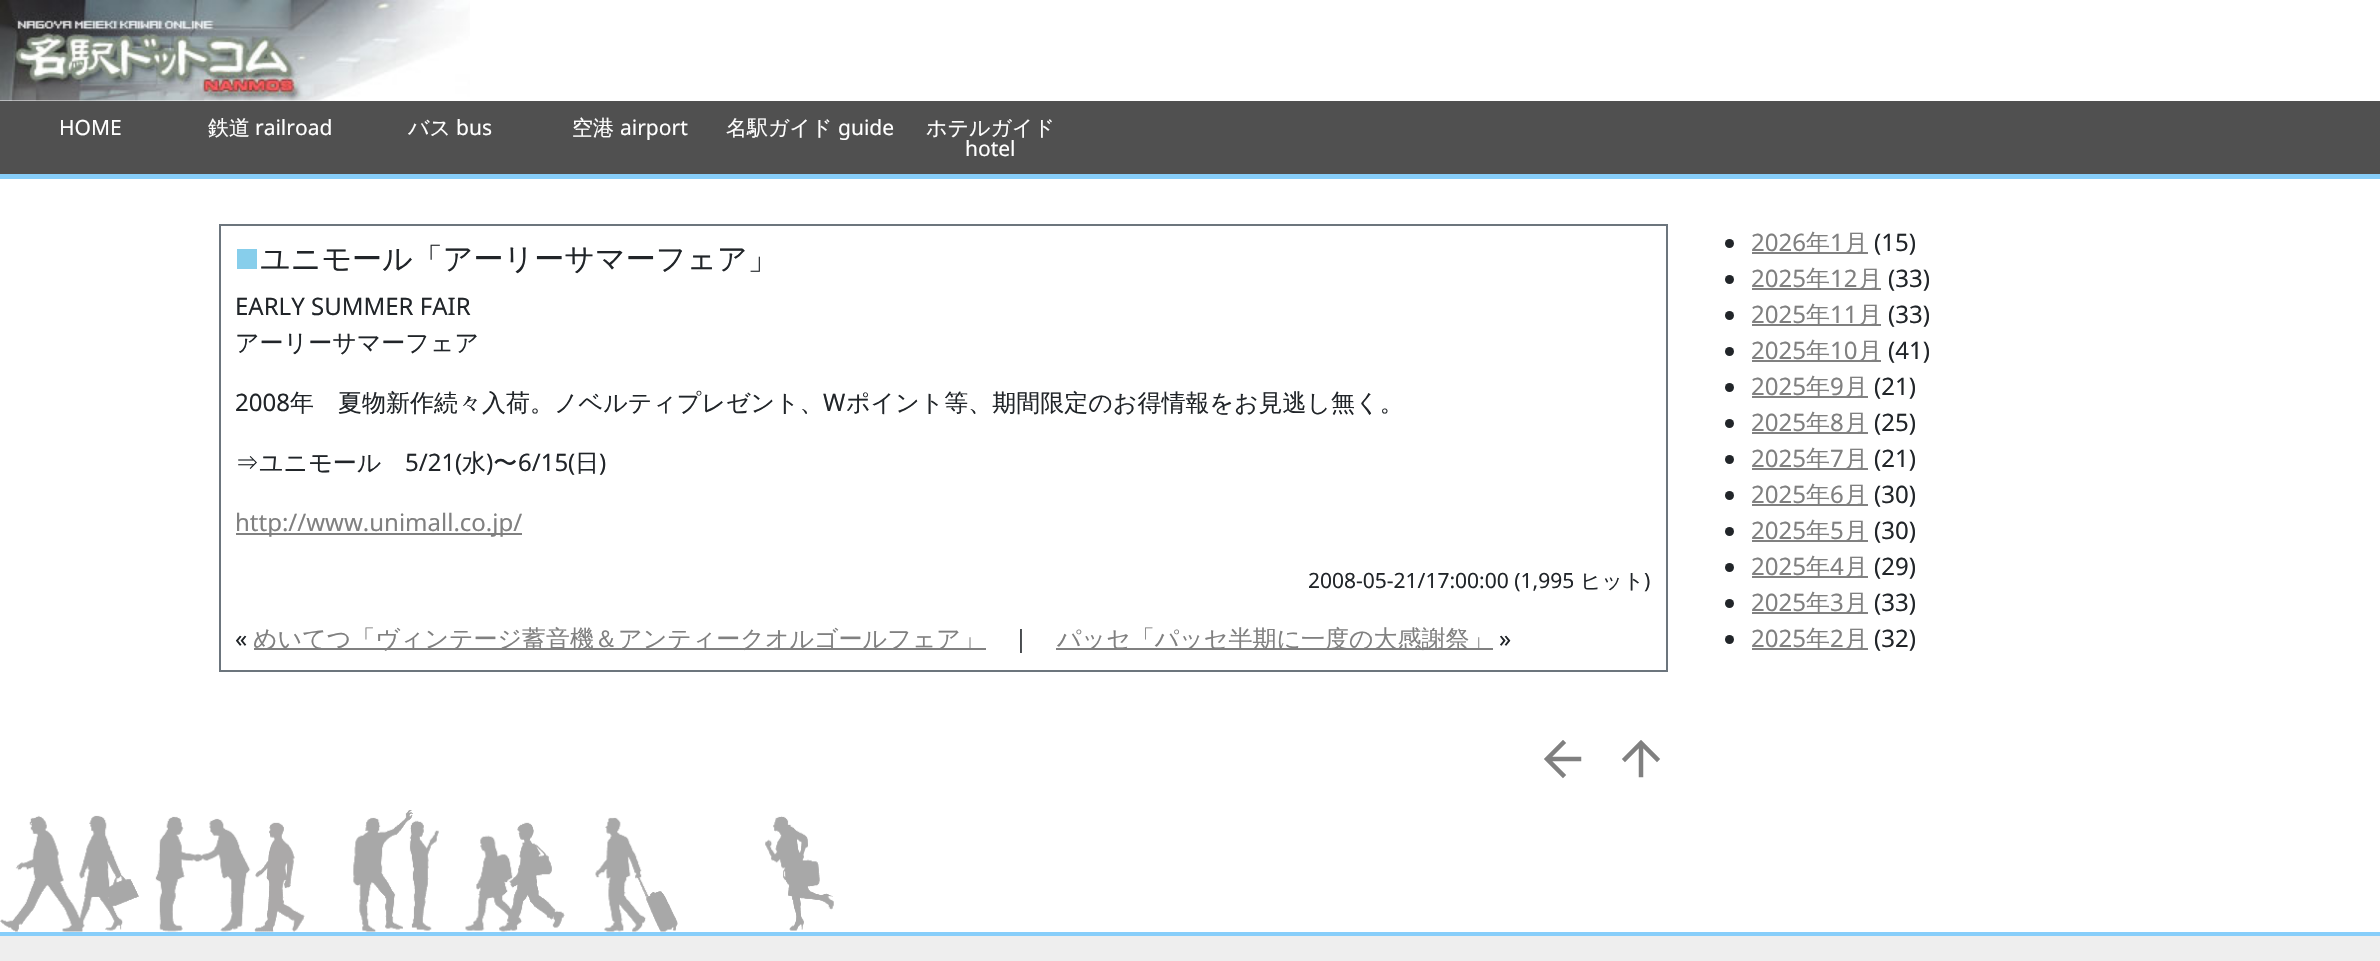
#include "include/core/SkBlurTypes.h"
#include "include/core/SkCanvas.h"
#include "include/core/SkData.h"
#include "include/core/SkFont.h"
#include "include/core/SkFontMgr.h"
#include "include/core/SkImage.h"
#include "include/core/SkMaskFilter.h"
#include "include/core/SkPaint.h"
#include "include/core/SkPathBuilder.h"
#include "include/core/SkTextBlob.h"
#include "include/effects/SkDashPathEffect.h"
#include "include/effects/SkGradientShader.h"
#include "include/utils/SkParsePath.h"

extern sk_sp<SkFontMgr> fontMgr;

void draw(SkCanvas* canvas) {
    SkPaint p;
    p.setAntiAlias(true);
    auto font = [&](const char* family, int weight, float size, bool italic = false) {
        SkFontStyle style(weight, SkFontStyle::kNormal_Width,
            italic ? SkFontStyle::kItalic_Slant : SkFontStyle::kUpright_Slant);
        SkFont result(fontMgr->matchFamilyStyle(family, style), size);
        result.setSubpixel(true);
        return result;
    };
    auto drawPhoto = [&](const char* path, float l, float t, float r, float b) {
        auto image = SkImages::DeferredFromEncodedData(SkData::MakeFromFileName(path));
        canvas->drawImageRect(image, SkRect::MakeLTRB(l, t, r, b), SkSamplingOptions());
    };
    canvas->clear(0xFFFFFFFF);
    drawPhoto("media/1.png", 0, 0, 470, 101);
    p.setColor(0xFF505050);
    canvas->drawRect(SkRect::MakeLTRB(0, 101, 2380, 174), p);
    auto font1 = font("Noto Sans", 400, 21);
    p.setColor(0xFFFFFFFF);
    canvas->drawString("HOME", 59, 135, font1, p);
    auto font2 = font("WenQuanYi Zen Hei", 500, 21);
    canvas->drawString("鉄道", 208, 135, font2, p);
    canvas->drawString("railroad", 255, 135, font1, p);
    canvas->drawString("バス", 408, 135, font2, p);
    canvas->drawString("bus", 456, 135, font1, p);
    canvas->drawString("空港", 572, 135, font2, p);
    canvas->drawString("airport", 620, 135, font1, p);
    canvas->drawString("名駅ガイド", 726, 135, font2, p);
    canvas->drawString("guide", 838, 135, font1, p);
    canvas->drawString("ホテルガイド", 926, 135, font2, p);
    canvas->drawString("hotel", 965, 156, font1, p);
    p.setColor(0xFF87CEFA);
    canvas->drawRect(SkRect::MakeLTRB(0, 174, 2380, 179), p);
    p.setStyle(SkPaint::kStroke_Style);
    p.setStrokeWidth(2);
    p.setColor(0xFF6C757D);
    canvas->drawRect(SkRect::MakeLTRB(220, 225, 1667, 671), p);
    p.setStyle(SkPaint::kFill_Style);
    p.setColor(0xFF87CEEB);
    canvas->drawRect(SkRect::MakeLTRB(237, 249, 257, 269), p);
    auto font3 = font("WenQuanYi Zen Hei", 500, 30);
    p.setColor(0xFF212529);
    canvas->drawString("ユニモール「アーリーサマーフェア」", 260, 269, font3, p);
    auto font4 = font("Noto Sans", 400, 24);
    canvas->drawString("EARLY SUMMER FAIR", 235, 315, font4, p);
    auto font5 = font("WenQuanYi Zen Hei", 500, 24);
    canvas->drawString("アーリーサマーフェア", 235, 351, font5, p);
    canvas->drawString("2008", 235, 411, font4, p);
    canvas->drawString("年　夏物新作続々入荷。ノベルティプレゼント、", 290, 411, font5, p);
    canvas->drawString("W", 823, 411, font4, p);
    canvas->drawString("ポイント等、期間限定のお得情報をお見逃し無く。", 846, 411, font5, p);
    canvas->drawString("5/21(", 405, 471, font4, p);
    {
        const struct { const char* s; float x, y; } items[] = {
            {"水 〜", 462, 471},
            {"日", 575, 471},
            {"⇒ユニモール", 235, 471},
        };
        for (auto [s, x, y] : items) {
            canvas->drawString(s, x, y, font5, p);
        }
    }
    {
        const struct { const char* s; float x, y; } items[] = {
            {")", 486, 471},
            {"6/15(", 518, 471},
            {")", 599, 471},
        };
        for (auto [s, x, y] : items) {
            canvas->drawString(s, x, y, font4, p);
        }
    }
    p.setColor(0xFF808080);
    canvas->drawRect(SkRect::MakeLTRB(236, 533, 522, 535), p);
    canvas->drawString("http://www.unimall.co.jp/", 235, 531, font4, p);
    p.setColor(0xFF212529);
    canvas->drawString("2008-05-21/17:00:00 (1,995", 1308, 588, font1, p);
    canvas->drawString("ヒット", 1580, 588, font2, p);
    canvas->drawString(")", 1644, 588, font1, p);
    canvas->drawString("«", 235, 647, font4, p);
    p.setColor(0xFF808080);
    canvas->drawRect(SkRect::MakeLTRB(254, 648, 986, 650), p);
    canvas->drawString("めいてつ「ヴィンテージ蓄音機＆アンティークオルゴールフェア」", 253, 647, font5, p);
    p.setColor(0xFF212529);
    canvas->drawString("｜", 1009, 647, font5, p);
    p.setColor(0xFF808080);
    canvas->drawRect(SkRect::MakeLTRB(1056, 648, 1493, 650), p);
    canvas->drawString("パッセ「パッセ半期に一度の大感謝祭」", 1057, 647, font5, p);
    p.setColor(0xFF212529);
    canvas->drawString("»", 1499, 647, font4, p);
    p.setStyle(SkPaint::kStroke_Style);
    p.setStrokeWidth(4.5f);
    p.setStrokeCap(SkPaint::kSquare_Cap);
    p.setColor(0xFF808080);
    canvas->drawPath(SkPathBuilder().moveTo(1579, 759).lineTo(1549.5f, 759).moveTo(1563, 743).lineTo(1547, 759).lineTo(1563, 775).detach(), p);
    canvas->drawPath(SkPathBuilder().moveTo(1641, 775).lineTo(1641, 745.5f).moveTo(1625, 759).lineTo(1641, 743).lineTo(1657, 759).detach(), p);
    p.setStyle(SkPaint::kFill_Style);
    p.setColor(0xFF212529);
    canvas->drawCircle(1729.5f, 243.5f, 4.5f, p);
    p.setColor(0xFF808080);
    canvas->drawString("2026", 1751, 251, font4, p);
    canvas->drawRect(SkRect::MakeLTRB(1752, 252, 1868, 254), p);
    canvas->drawString("年", 1806, 251, font5, p);
    canvas->drawString("1", 1830, 251, font4, p);
    canvas->drawString("月", 1844, 251, font5, p);
    p.setColor(0xFF212529);
    canvas->drawString("(15)", 1874, 251, font4, p);
    canvas->drawCircle(1729.5f, 279.5f, 4.5f, p);
    p.setColor(0xFF808080);
    canvas->drawString("2025", 1751, 287, font4, p);
    canvas->drawRect(SkRect::MakeLTRB(1752, 288, 1881, 290), p);
    canvas->drawString("年", 1806, 287, font5, p);
    canvas->drawString("12", 1830, 287, font4, p);
    canvas->drawString("月", 1858, 287, font5, p);
    p.setColor(0xFF212529);
    canvas->drawString("(33)", 1888, 287, font4, p);
    canvas->drawCircle(1729.5f, 315.5f, 4.5f, p);
    p.setColor(0xFF808080);
    canvas->drawString("2025", 1751, 323, font4, p);
    canvas->drawRect(SkRect::MakeLTRB(1752, 324, 1881, 326), p);
    canvas->drawString("年", 1806, 323, font5, p);
    canvas->drawString("11", 1830, 323, font4, p);
    canvas->drawString("月", 1858, 323, font5, p);
    p.setColor(0xFF212529);
    canvas->drawString("(33)", 1888, 323, font4, p);
    canvas->drawCircle(1729.5f, 351.5f, 4.5f, p);
    p.setColor(0xFF808080);
    canvas->drawString("2025", 1751, 359, font4, p);
    canvas->drawRect(SkRect::MakeLTRB(1752, 360, 1881, 362), p);
    canvas->drawString("年", 1806, 359, font5, p);
    canvas->drawString("10", 1830, 359, font4, p);
    canvas->drawString("月", 1858, 359, font5, p);
    p.setColor(0xFF212529);
    canvas->drawString("(41)", 1888, 359, font4, p);
    canvas->drawCircle(1729.5f, 387.5f, 4.5f, p);
    p.setColor(0xFF808080);
    canvas->drawString("2025", 1751, 395, font4, p);
    canvas->drawRect(SkRect::MakeLTRB(1752, 396, 1868, 398), p);
    canvas->drawString("年", 1806, 395, font5, p);
    canvas->drawString("9", 1830, 395, font4, p);
    canvas->drawString("月", 1844, 395, font5, p);
    p.setColor(0xFF212529);
    canvas->drawString("(21)", 1874, 395, font4, p);
    canvas->drawCircle(1729.5f, 423.5f, 4.5f, p);
    p.setColor(0xFF808080);
    canvas->drawString("2025", 1751, 431, font4, p);
    canvas->drawRect(SkRect::MakeLTRB(1752, 432, 1868, 434), p);
    canvas->drawString("年", 1806, 431, font5, p);
    canvas->drawString("8", 1830, 431, font4, p);
    canvas->drawString("月", 1844, 431, font5, p);
    p.setColor(0xFF212529);
    canvas->drawString("(25)", 1874, 431, font4, p);
    canvas->drawCircle(1729.5f, 459.5f, 4.5f, p);
    p.setColor(0xFF808080);
    canvas->drawString("2025", 1751, 467, font4, p);
    canvas->drawRect(SkRect::MakeLTRB(1752, 468, 1868, 470), p);
    canvas->drawString("年", 1806, 467, font5, p);
    canvas->drawString("7", 1830, 467, font4, p);
    canvas->drawString("月", 1844, 467, font5, p);
    p.setColor(0xFF212529);
    canvas->drawString("(21)", 1874, 467, font4, p);
    canvas->drawCircle(1729.5f, 495.5f, 4.5f, p);
    p.setColor(0xFF808080);
    canvas->drawString("2025", 1751, 503, font4, p);
    canvas->drawRect(SkRect::MakeLTRB(1752, 504, 1868, 506), p);
    canvas->drawString("年", 1806, 503, font5, p);
    canvas->drawString("6", 1830, 503, font4, p);
    canvas->drawString("月", 1844, 503, font5, p);
    p.setColor(0xFF212529);
    canvas->drawString("(30)", 1874, 503, font4, p);
    canvas->drawCircle(1729.5f, 531.5f, 4.5f, p);
    p.setColor(0xFF808080);
    canvas->drawString("2025", 1751, 539, font4, p);
    canvas->drawRect(SkRect::MakeLTRB(1752, 540, 1868, 542), p);
    canvas->drawString("年", 1806, 539, font5, p);
    canvas->drawString("5", 1830, 539, font4, p);
    canvas->drawString("月", 1844, 539, font5, p);
    p.setColor(0xFF212529);
    canvas->drawString("(30)", 1874, 539, font4, p);
    canvas->drawCircle(1729.5f, 567.5f, 4.5f, p);
    p.setColor(0xFF808080);
    canvas->drawString("2025", 1751, 575, font4, p);
    canvas->drawRect(SkRect::MakeLTRB(1752, 576, 1868, 578), p);
    canvas->drawString("年", 1806, 575, font5, p);
    canvas->drawString("4", 1830, 575, font4, p);
    canvas->drawString("月", 1844, 575, font5, p);
    p.setColor(0xFF212529);
    canvas->drawString("(29)", 1874, 575, font4, p);
    canvas->drawCircle(1729.5f, 603.5f, 4.5f, p);
    p.setColor(0xFF808080);
    canvas->drawString("2025", 1751, 611, font4, p);
    canvas->drawRect(SkRect::MakeLTRB(1752, 612, 1868, 614), p);
    canvas->drawString("年", 1806, 611, font5, p);
    canvas->drawString("3", 1830, 611, font4, p);
    canvas->drawString("月", 1844, 611, font5, p);
    p.setColor(0xFF212529);
    canvas->drawString("(33)", 1874, 611, font4, p);
    canvas->drawCircle(1729.5f, 639.5f, 4.5f, p);
    p.setColor(0xFF808080);
    canvas->drawString("2025", 1751, 647, font4, p);
    canvas->drawRect(SkRect::MakeLTRB(1752, 648, 1868, 650), p);
    canvas->drawString("年", 1806, 647, font5, p);
    canvas->drawString("2", 1830, 647, font4, p);
    canvas->drawString("月", 1844, 647, font5, p);
    p.setColor(0xFF212529);
    canvas->drawString("(32)", 1874, 647, font4, p);
    drawPhoto("media/2.png", 0, 810, 834, 932);
    p.setColor(0xFF87CEFA);
    canvas->drawRect(SkRect::MakeLTRB(0, 932, 2380, 936), p);
    p.setColor(0xFFEEEEEE);
    canvas->drawRect(SkRect::MakeLTRB(0, 936, 2380, 961), p);
}
